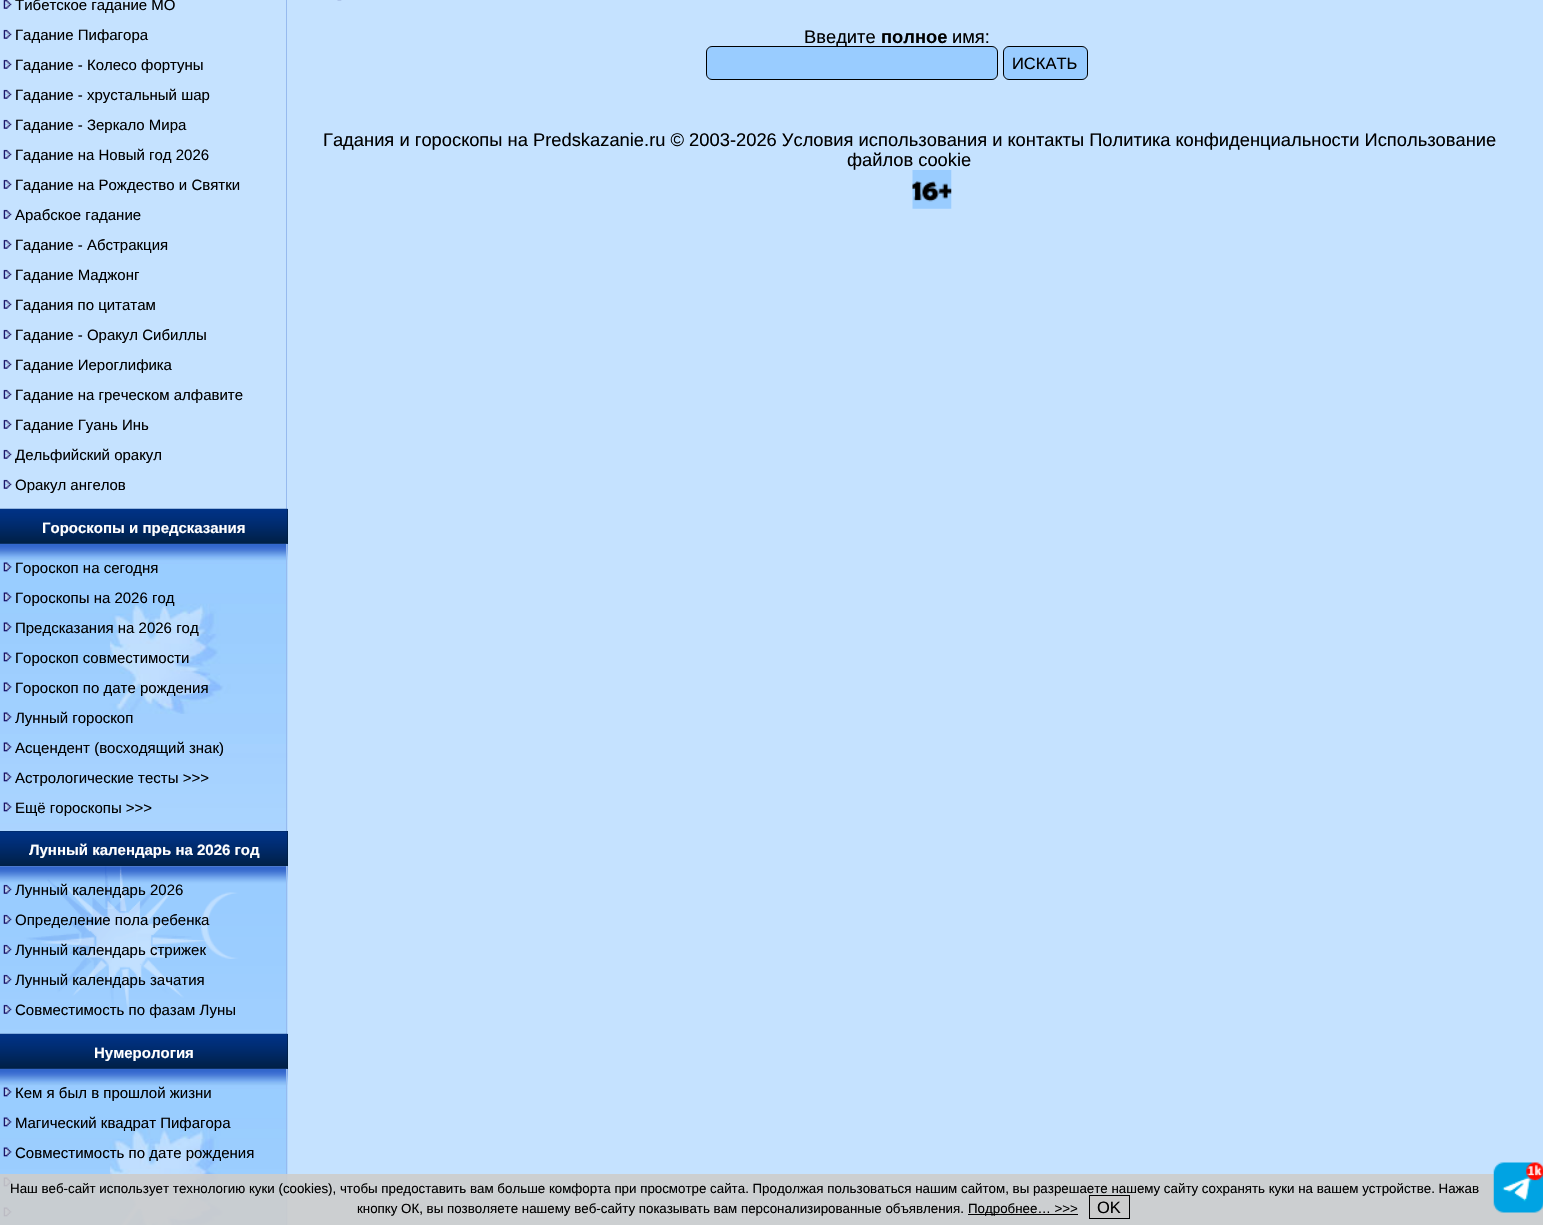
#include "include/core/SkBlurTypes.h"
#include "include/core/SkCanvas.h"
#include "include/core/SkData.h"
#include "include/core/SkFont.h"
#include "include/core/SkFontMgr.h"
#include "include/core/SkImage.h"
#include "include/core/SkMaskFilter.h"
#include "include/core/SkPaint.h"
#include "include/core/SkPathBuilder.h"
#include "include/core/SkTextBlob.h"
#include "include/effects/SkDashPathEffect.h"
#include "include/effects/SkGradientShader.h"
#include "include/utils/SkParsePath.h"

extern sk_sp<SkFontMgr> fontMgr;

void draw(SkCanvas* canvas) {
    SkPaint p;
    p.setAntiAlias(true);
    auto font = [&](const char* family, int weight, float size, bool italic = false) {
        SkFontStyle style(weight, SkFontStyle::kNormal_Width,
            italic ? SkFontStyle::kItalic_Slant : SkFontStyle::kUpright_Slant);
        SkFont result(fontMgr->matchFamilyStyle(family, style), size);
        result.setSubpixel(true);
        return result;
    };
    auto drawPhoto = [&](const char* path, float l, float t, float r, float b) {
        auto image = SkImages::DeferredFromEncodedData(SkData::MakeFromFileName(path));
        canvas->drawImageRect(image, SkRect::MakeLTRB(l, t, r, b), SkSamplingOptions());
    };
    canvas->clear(0xFFC5E2FF);
    p.setColor(0xFF96BAEF);
    canvas->drawRect(SkRect::MakeLTRB(286, 0, 287, 509), p);
    drawPhoto("media/1.png", 3, 0, 12, 9);
    auto font1 = font("Liberation Sans", 400, 15);
    p.setColor(0xFF000000);
    canvas->drawString("Тибетское гадание МО", 15, 10, font1, p);
    drawPhoto("media/2.png", 3, 29, 12, 39);
    canvas->drawString("Гадание Пифагора", 15, 40, font1, p);
    drawPhoto("media/2.png", 3, 59, 12, 69);
    canvas->drawString("Гадание - Колесо фортуны", 15, 70, font1, p);
    drawPhoto("media/2.png", 3, 89, 12, 99);
    canvas->drawString("Гадание - хрустальный шар", 15, 100, font1, p);
    drawPhoto("media/2.png", 3, 119, 12, 129);
    canvas->drawString("Гадание - Зеркало Мира", 15, 130, font1, p);
    drawPhoto("media/2.png", 3, 149, 12, 159);
    canvas->drawString("Гадание на Новый год 2026", 15, 160, font1, p);
    drawPhoto("media/2.png", 3, 179, 12, 189);
    canvas->drawString("Гадание на Рождество и Святки", 15, 190, font1, p);
    drawPhoto("media/2.png", 3, 209, 12, 219);
    canvas->drawString("Арабское гадание", 15, 220, font1, p);
    drawPhoto("media/2.png", 3, 239, 12, 249);
    canvas->drawString("Гадание - Абстракция", 15, 250, font1, p);
    drawPhoto("media/2.png", 3, 269, 12, 279);
    canvas->drawString("Гадание Маджонг", 15, 280, font1, p);
    drawPhoto("media/2.png", 3, 299, 12, 309);
    canvas->drawString("Гадания по цитатам", 15, 310, font1, p);
    drawPhoto("media/2.png", 3, 329, 12, 339);
    canvas->drawString("Гадание - Оракул Сибиллы", 15, 340, font1, p);
    drawPhoto("media/2.png", 3, 359, 12, 369);
    canvas->drawString("Гадание Иероглифика", 15, 370, font1, p);
    drawPhoto("media/2.png", 3, 389, 12, 399);
    canvas->drawString("Гадание на греческом алфавите", 15, 400, font1, p);
    drawPhoto("media/2.png", 3, 419, 12, 429);
    canvas->drawString("Гадание Гуань Инь", 15, 430, font1, p);
    drawPhoto("media/2.png", 3, 449, 12, 459);
    canvas->drawString("Дельфийский оракул", 15, 460, font1, p);
    drawPhoto("media/2.png", 3, 479, 12, 489);
    canvas->drawString("Оракул ангелов", 15, 490, font1, p);
    p.setColor(0xFF00192F);
    canvas->drawRect(SkRect::MakeLTRB(0, 509, 288, 544), p);
    drawPhoto("media/3.png", 0, 508, 288, 544);
    auto font2 = font("Liberation Sans", 700, 15);
    p.setColor(0xFFFFFFFF);
    canvas->drawString("Гороскопы и предсказания", 42, 533, font2, p);
    drawPhoto("media/4.png", 0, 543, 288, 831);
    p.setColor(0xFF96BAEF);
    canvas->drawRect(SkRect::MakeLTRB(286, 544, 287, 831), p);
    drawPhoto("media/5.png", 3, 562, 12, 572);
    p.setColor(0xFF000000);
    canvas->drawString("Гороскоп на сегодня", 15, 573, font1, p);
    drawPhoto("media/6.png", 3, 592, 12, 602);
    canvas->drawString("Гороскопы на 2026 год", 15, 603, font1, p);
    drawPhoto("media/7.png", 3, 622, 12, 632);
    canvas->drawString("Предсказания на 2026 год", 15, 633, font1, p);
    drawPhoto("media/8.png", 3, 652, 12, 662);
    canvas->drawString("Гороскоп совместимости", 15, 663, font1, p);
    drawPhoto("media/9.png", 3, 682, 12, 692);
    canvas->drawString("Гороскоп по дате рождения", 15, 693, font1, p);
    drawPhoto("media/10.png", 3, 712, 12, 722);
    canvas->drawString("Лунный гороскоп", 15, 723, font1, p);
    drawPhoto("media/11.png", 3, 742, 12, 752);
    canvas->drawString("Асцендент (восходящий знак)", 15, 753, font1, p);
    drawPhoto("media/12.png", 3, 772, 12, 782);
    canvas->drawString("Астрологические тесты >>>", 15, 783, font1, p);
    drawPhoto("media/13.png", 3, 802, 12, 812);
    canvas->drawString("Ещё гороскопы >>>", 15, 813, font1, p);
    p.setColor(0xFF00192F);
    canvas->drawRect(SkRect::MakeLTRB(0, 831, 288, 866), p);
    drawPhoto("media/14.png", 0, 831, 288, 867);
    p.setColor(0xFFFFFFFF);
    canvas->drawString("Лунный календарь на 2026 год", 29, 855, font2, p);
    drawPhoto("media/15.png", 0, 866, 288, 1034);
    p.setColor(0xFF96BAEF);
    canvas->drawRect(SkRect::MakeLTRB(286, 866, 287, 1034), p);
    drawPhoto("media/16.png", 3, 884, 12, 894);
    p.setColor(0xFF000000);
    canvas->drawString("Лунный календарь 2026", 15, 895, font1, p);
    drawPhoto("media/17.png", 3, 914, 12, 924);
    canvas->drawString("Определение пола ребенка", 15, 925, font1, p);
    drawPhoto("media/18.png", 3, 944, 12, 954);
    canvas->drawString("Лунный календарь стрижек", 15, 955, font1, p);
    drawPhoto("media/19.png", 3, 974, 12, 984);
    canvas->drawString("Лунный календарь зачатия", 15, 985, font1, p);
    drawPhoto("media/20.png", 3, 1004, 12, 1014);
    canvas->drawString("Совместимость по фазам Луны", 15, 1015, font1, p);
    p.setColor(0xFF00192F);
    canvas->drawRect(SkRect::MakeLTRB(0, 1034, 288, 1069), p);
    drawPhoto("media/21.png", 0, 1033, 288, 1069);
    p.setColor(0xFFFFFFFF);
    canvas->drawString("Нумерология", 94, 1058, font2, p);
    drawPhoto("media/22.png", 0, 1068, 288, 1225);
    p.setColor(0xFF96BAEF);
    canvas->drawRect(SkRect::MakeLTRB(286, 1069, 287, 1225), p);
    drawPhoto("media/5.png", 3, 1087, 12, 1097);
    p.setColor(0xFF000000);
    canvas->drawString("Кем я был в прошлой жизни", 15, 1098, font1, p);
    drawPhoto("media/6.png", 3, 1117, 12, 1127);
    canvas->drawString("Магический квадрат Пифагора", 15, 1128, font1, p);
    drawPhoto("media/7.png", 3, 1147, 12, 1157);
    canvas->drawString("Совместимость по дате рождения", 15, 1158, font1, p);
    drawPhoto("media/8.png", 3, 1177, 12, 1187);
    drawPhoto("media/9.png", 3, 1207, 12, 1217);
    drawPhoto("media/23.png", 337, 0, 342, 1);
    auto font3 = font("Liberation Sans", 400, 18.33f);
    canvas->drawString("Введите", 804, 43, font3, p);
    auto font4 = font("Liberation Sans", 700, 18.33f);
    canvas->drawString("полное", 881, 43, font4, p);
    canvas->drawString("имя:", 952, 43, font3, p);
    p.setColor(0xFF99CCFF);
    canvas->drawRoundRect(SkRect::MakeLTRB(706.5f, 46.5f, 997.5f, 79.5f), 5.5f, 5.5f, p);
    p.setStyle(SkPaint::kStroke_Style);
    p.setStrokeWidth(1);
    p.setColor(0xFF000000);
    canvas->drawRoundRect(SkRect::MakeLTRB(706.5f, 46.5f, 997.5f, 79.5f), 5.5f, 5.5f, p);
    p.setStyle(SkPaint::kFill_Style);
    p.setColor(0xFF99CCFF);
    canvas->drawRoundRect(SkRect::MakeLTRB(1003.5f, 46.5f, 1087.5f, 79.5f), 5.5f, 5.5f, p);
    p.setStyle(SkPaint::kStroke_Style);
    p.setColor(0xFF000000);
    canvas->drawRoundRect(SkRect::MakeLTRB(1003.5f, 46.5f, 1087.5f, 79.5f), 5.5f, 5.5f, p);
    auto font5 = font("Liberation Sans", 400, 16.5f);
    p.setStyle(SkPaint::kFill_Style);
    canvas->drawString("ИСКАТЬ", 1012, 69, font5, p);
    p.setColor(0xE6CCCCCC);
    canvas->drawRect(SkRect::MakeLTRB(0, 1174, 1543, 1225), p);
    drawPhoto("media/24.png", 1493, 1162, 1543, 1213);
    p.setColor(0xFF000000);
    canvas->drawString("Гадания и гороскопы на Predskazanie.ru © 2003-2026 Условия использования и контакты Политика конфиденциальности Использование", 323, 146, font3, p);
    canvas->drawString("файлов cookie", 847, 166, font3, p);
    drawPhoto("media/25.png", 912, 170, 952, 209);
    auto font6 = font("Liberation Sans", 400, 13.33f);
    canvas->drawString("Наш веб-сайт использует технологию куки (cookies), чтобы предоставить вам больше комфорта при просмотре сайта. Продолжая пользоваться нашим сайтом, вы разрешаете нашему сайту сохранять куки на вашем устройстве. Нажав", 10, 1193, font6, p);
    canvas->drawString("кнопку ОК, вы позволяете нашему веб-сайту показывать вам персонализированные объявления.", 357, 1213, font6, p);
    canvas->drawRect(SkRect::MakeLTRB(968, 1214, 1078, 1215), p);
    canvas->drawString("Подробнее… >>>", 968, 1213, font6, p);
    p.setColor(0xFFCCCCCC);
    canvas->drawRect(SkRect::MakeLTRB(1089.5f, 1195.5f, 1129.5f, 1218.5f), p);
    p.setStyle(SkPaint::kStroke_Style);
    p.setColor(0xFF000000);
    canvas->drawRect(SkRect::MakeLTRB(1089.5f, 1195.5f, 1129.5f, 1218.5f), p);
    p.setStyle(SkPaint::kFill_Style);
    canvas->drawString("OK", 1097, 1213, font5, p);
}
